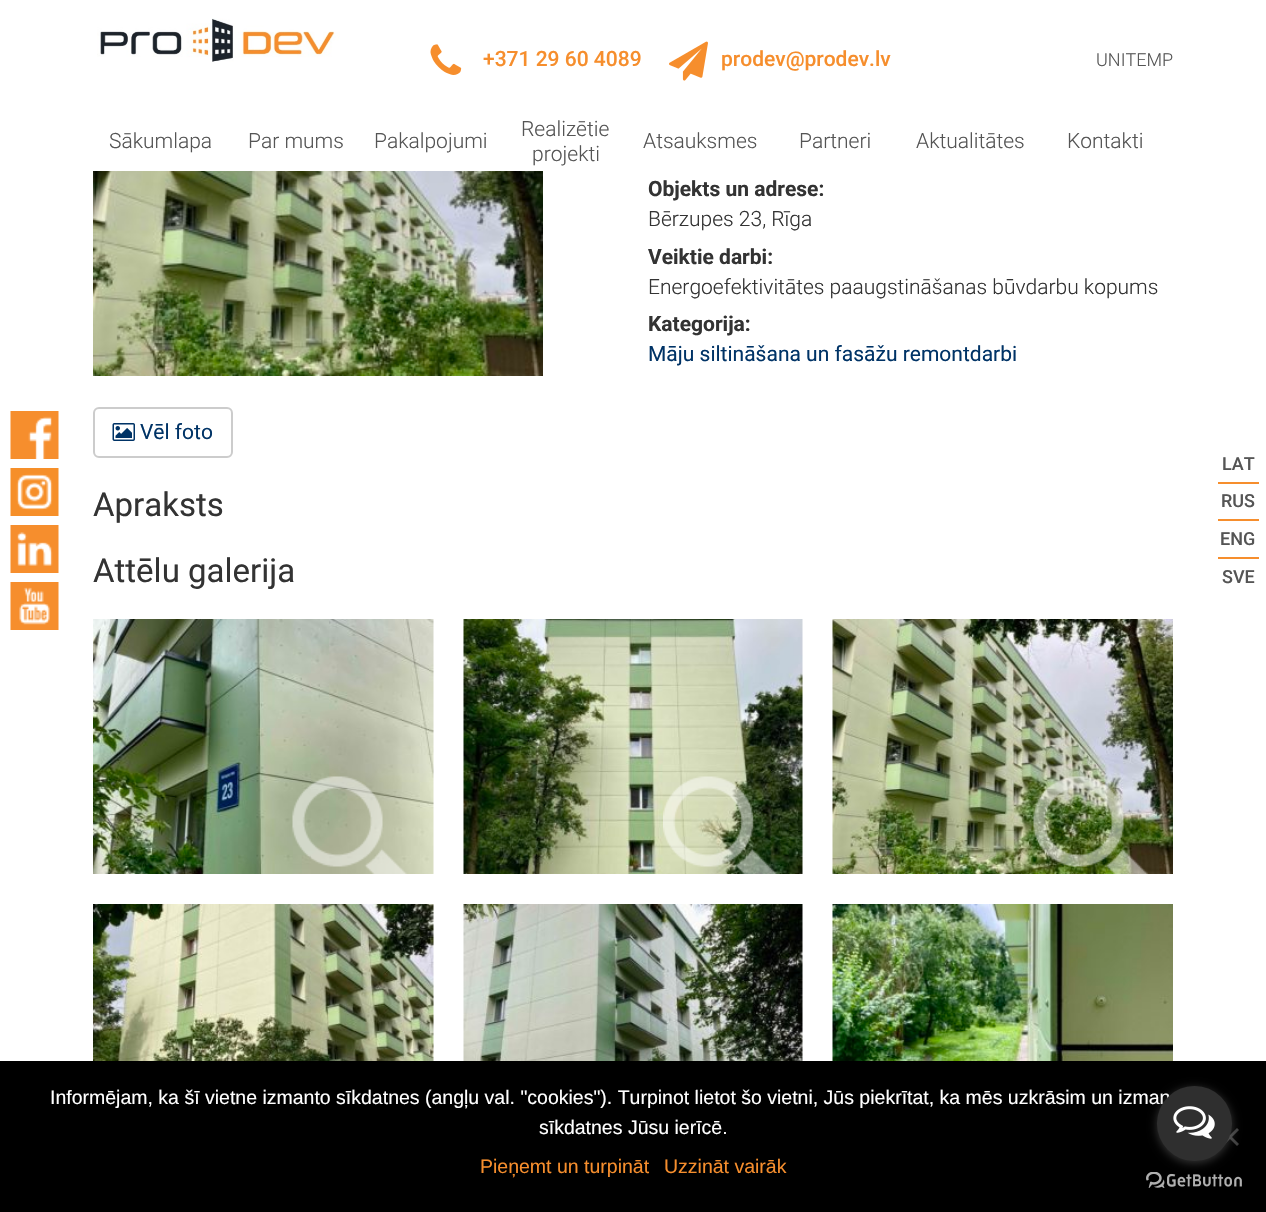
#include "include/core/SkBlurTypes.h"
#include "include/core/SkCanvas.h"
#include "include/core/SkData.h"
#include "include/core/SkFont.h"
#include "include/core/SkFontMgr.h"
#include "include/core/SkImage.h"
#include "include/core/SkMaskFilter.h"
#include "include/core/SkPaint.h"
#include "include/core/SkPathBuilder.h"
#include "include/core/SkTextBlob.h"
#include "include/effects/SkDashPathEffect.h"
#include "include/effects/SkGradientShader.h"
#include "include/utils/SkParsePath.h"

extern sk_sp<SkFontMgr> fontMgr;

void draw(SkCanvas* canvas) {
    SkPaint p;
    p.setAntiAlias(true);
    auto font = [&](const char* family, int weight, float size, bool italic = false) {
        SkFontStyle style(weight, SkFontStyle::kNormal_Width,
            italic ? SkFontStyle::kItalic_Slant : SkFontStyle::kUpright_Slant);
        SkFont result(fontMgr->matchFamilyStyle(family, style), size);
        result.setSubpixel(true);
        return result;
    };
    auto drawPhoto = [&](const char* path, float l, float t, float r, float b) {
        auto image = SkImages::DeferredFromEncodedData(SkData::MakeFromFileName(path));
        canvas->drawImageRect(image, SkRect::MakeLTRB(l, t, r, b), SkSamplingOptions());
    };
    canvas->clear(0xFFFFFFFF);
    drawPhoto("media/1.png", 97, 18, 340, 62);
    drawPhoto("media/2.png", 430, 44, 462, 75);
    auto font1 = font("Roboto", 500, 21);
    p.setColor(0xFFF68E2D);
    canvas->drawString("+371 29 60 4089", 483, 66, font1, p);
    drawPhoto("media/3.png", 669, 41, 708, 81);
    canvas->drawString("prodev@prodev.lv", 721, 66, font1, p);
    auto font2 = font("Roboto", 300, 18);
    p.setColor(0xFF555555);
    canvas->drawString("UNITEMP", 1096, 66, font2, p);
    drawPhoto("media/4.png", 10, 411, 59, 459);
    drawPhoto("media/5.png", 10, 468, 59, 516);
    drawPhoto("media/6.png", 10, 525, 59, 573);
    drawPhoto("media/7.png", 10, 582, 59, 630);
    p.setColor(0xFFF68E2D);
    canvas->drawRect(SkRect::MakeLTRB(1218, 482, 1259, 484), p);
    auto font3 = font("Roboto", 500, 18);
    p.setColor(0xFF555555);
    canvas->drawString("LAT", 1222, 470, font3, p);
    p.setColor(0xFFF68E2D);
    canvas->drawRect(SkRect::MakeLTRB(1218, 519, 1259, 521), p);
    p.setColor(0xFF555555);
    canvas->drawString("RUS", 1221, 507, font3, p);
    p.setColor(0xFFF68E2D);
    canvas->drawRect(SkRect::MakeLTRB(1218, 557, 1259, 559), p);
    p.setColor(0xFF555555);
    canvas->drawString("ENG", 1220, 545, font3, p);
    canvas->drawString("SVE", 1222, 583, font3, p);
    auto font4 = font("Roboto", 300, 21);
    {
        const struct { const char* s; float x, y; } items[] = {
            {"Sākumlapa", 109, 148},
            {"Par mums", 248, 148},
            {"Pakalpojumi", 374, 148},
            {"Realizētie", 521, 136},
            {"projekti", 532, 161},
            {"Atsauksmes", 643, 148},
            {"Partneri", 799, 148},
            {"Aktualitātes", 916, 148},
            {"Kontakti", 1067, 148},
        };
        for (auto [s, x, y] : items) {
            canvas->drawString(s, x, y, font4, p);
        }
    }
    auto font5 = font("Roboto", 700, 21);
    p.setColor(0xFF333333);
    canvas->drawString("Objekts un adrese:", 648, 196, font5, p);
    canvas->drawString("Bērzupes 23, Rīga", 648, 226, font4, p);
    canvas->drawString("Veiktie darbi:", 648, 264, font5, p);
    canvas->drawString("Energoefektivitātes paaugstināšanas būvdarbu kopums", 648, 294, font4, p);
    canvas->drawString("Kategorija:", 648, 331, font5, p);
    auto font6 = font("Roboto", 400, 21);
    p.setColor(0xFF003366);
    canvas->drawString("Māju siltināšana un fasāžu remontdarbi", 648, 361, font6, p);
    drawPhoto("media/8.png", 93, 171, 543, 376);
    p.setStyle(SkPaint::kStroke_Style);
    p.setStrokeWidth(2);
    p.setColor(0xFFCCCCCC);
    canvas->drawRoundRect(SkRect::MakeLTRB(94, 408, 232, 457), 5, 5, p);
    drawPhoto("media/9.png", 112, 423, 135, 441);
    p.setStyle(SkPaint::kFill_Style);
    p.setColor(0xFF003366);
    canvas->drawString("Vēl foto", 140, 439, font6, p);
    auto font7 = font("Roboto", 400, 33);
    p.setColor(0xFF333333);
    canvas->drawString("Apraksts", 93, 516, font7, p);
    canvas->drawString("Attēlu galerija", 93, 582, font7, p);
    drawPhoto("media/10.png", 93, 619, 434, 874);
    drawPhoto("media/11.png", 292, 776, 407, 874);
    drawPhoto("media/12.png", 463, 619, 803, 874);
    drawPhoto("media/13.png", 663, 776, 778, 874);
    drawPhoto("media/14.png", 832, 619, 1173, 874);
    drawPhoto("media/15.png", 1033, 776, 1148, 874);
    drawPhoto("media/16.png", 93, 904, 434, 1061);
    drawPhoto("media/17.png", 463, 904, 803, 1061);
    drawPhoto("media/18.png", 832, 904, 1173, 1061);
    p.setColor(0xFF000000);
    canvas->drawRect(SkRect::MakeLTRB(0, 1061, 1266, 1212), p);
    auto font8 = font("Liberation Sans", 400, 19.5f);
    p.setColor(0xFFFFFFFF);
    canvas->drawString("Informējam, ka šī vietne izmanto sīkdatnes (angļu val. \"cookies\"). Turpinot lietot šo vietni, Jūs piekrītat, ka mēs uzkrāsim un izman", 50, 1104, font8, p);
    canvas->drawString("sīkdatnes Jūsu ierīcē.", 539, 1134, font8, p);
    p.setColor(0xFF404040);
    canvas->drawPath(SkPathBuilder().moveTo(1237, 1128).lineTo(1239, 1130).lineTo(1223, 1146).lineTo(1221, 1144).close().detach(), p);
    canvas->drawPath(SkPathBuilder().moveTo(1221, 1130).lineTo(1223, 1128).lineTo(1239, 1144).lineTo(1237, 1146).close().detach(), p);
    p.setColor(0xFFF68E2D);
    canvas->drawString("Pieņemt un turpināt", 480, 1173, font8, p);
    canvas->drawString("Uzzināt vairāk", 664, 1173, font8, p);
    drawPhoto("media/20.png", 1146, 1172, 1242, 1188);
    p.setColor(0x66888888);
    p.setMaskFilter(SkMaskFilter::MakeBlur(kNormal_SkBlurStyle, 5));
    canvas->drawRoundRect(SkRect::MakeLTRB(1157, 1088, 1232, 1163), 37.5f, 37.5f, p);
    p.setMaskFilter(nullptr);
    p.setColor(0xFF2F2F2F);
    canvas->drawCircle(1194.5f, 1123.5f, 37.5f, p);
    drawPhoto("media/19.png", 1173, 1106, 1215, 1139);
}
